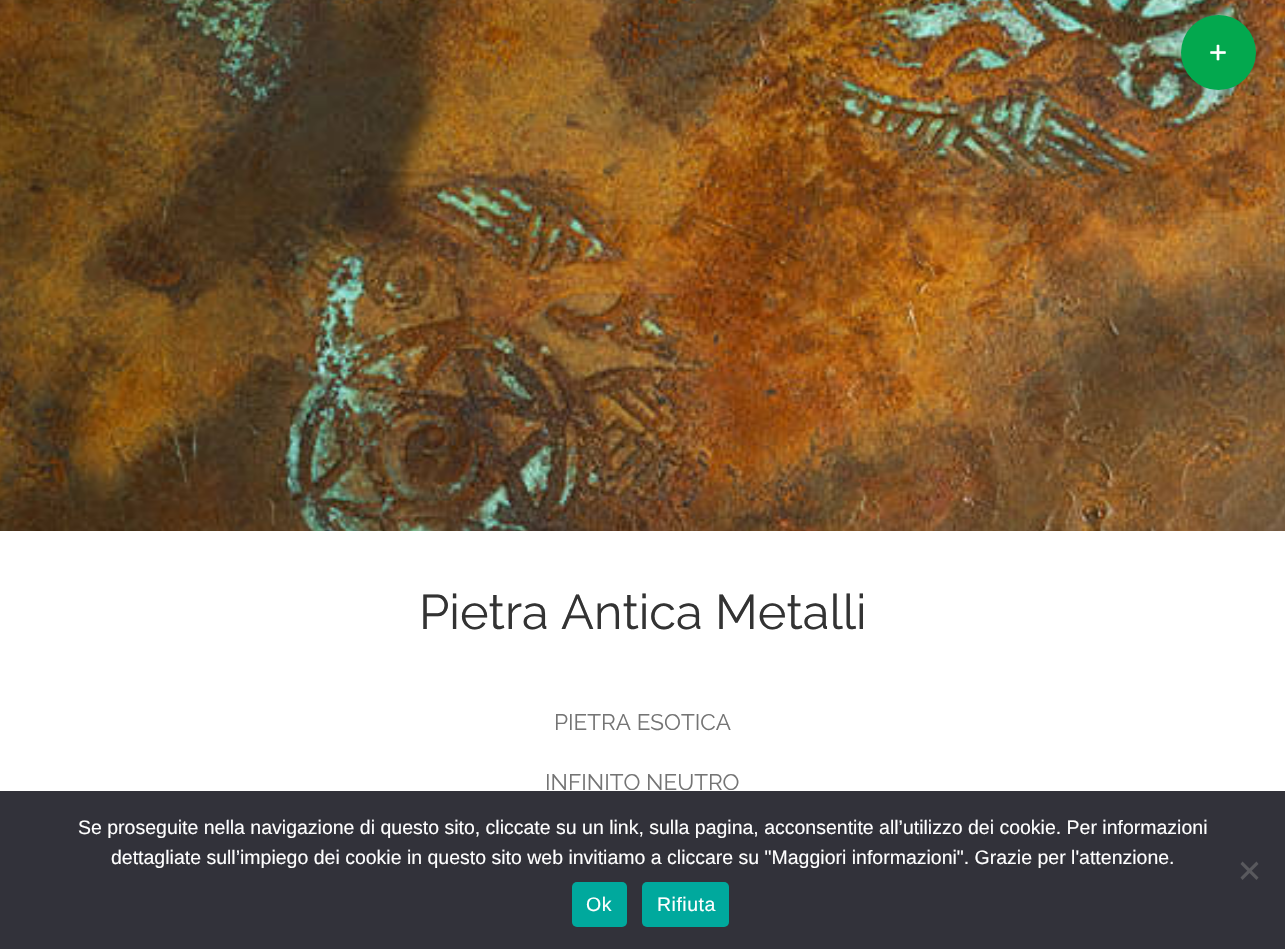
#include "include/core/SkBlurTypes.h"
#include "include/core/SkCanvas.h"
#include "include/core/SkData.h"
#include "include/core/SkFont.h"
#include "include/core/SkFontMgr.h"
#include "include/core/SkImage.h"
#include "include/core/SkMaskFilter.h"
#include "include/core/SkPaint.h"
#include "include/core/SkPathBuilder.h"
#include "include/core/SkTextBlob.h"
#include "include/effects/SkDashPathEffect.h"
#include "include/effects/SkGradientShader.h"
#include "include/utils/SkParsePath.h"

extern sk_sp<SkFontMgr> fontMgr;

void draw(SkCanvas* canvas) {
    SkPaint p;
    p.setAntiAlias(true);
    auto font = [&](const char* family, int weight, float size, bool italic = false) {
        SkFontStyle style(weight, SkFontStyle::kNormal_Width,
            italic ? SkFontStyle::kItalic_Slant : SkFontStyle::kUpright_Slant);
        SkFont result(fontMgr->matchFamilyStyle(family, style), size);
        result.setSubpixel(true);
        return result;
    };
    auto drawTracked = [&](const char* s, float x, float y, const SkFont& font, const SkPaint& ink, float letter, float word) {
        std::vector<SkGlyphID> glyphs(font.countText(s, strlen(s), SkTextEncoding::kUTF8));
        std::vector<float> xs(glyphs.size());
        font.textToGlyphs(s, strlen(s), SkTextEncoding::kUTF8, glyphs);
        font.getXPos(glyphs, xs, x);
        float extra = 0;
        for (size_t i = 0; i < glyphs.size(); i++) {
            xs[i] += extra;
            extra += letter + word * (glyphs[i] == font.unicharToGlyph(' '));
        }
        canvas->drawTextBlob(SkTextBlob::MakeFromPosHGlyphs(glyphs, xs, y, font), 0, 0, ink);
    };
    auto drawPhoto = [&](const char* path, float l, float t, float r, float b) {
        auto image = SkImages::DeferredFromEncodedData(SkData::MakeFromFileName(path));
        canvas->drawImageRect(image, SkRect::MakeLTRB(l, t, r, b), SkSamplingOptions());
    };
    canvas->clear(0xFFFFFFFF);
    drawPhoto("media/2.png", 0, 0, 1285, 531);
    p.setColor(0x24000000);
    p.setMaskFilter(SkMaskFilter::MakeBlur(kNormal_SkBlurStyle, 4));
    canvas->drawRoundRect(SkRect::MakeLTRB(1184, 23, 1253, 92), 34.5f, 34.5f, p);
    p.setMaskFilter(nullptr);
    p.setColor(0xFF03A84E);
    canvas->drawCircle(1218.5f, 52.5f, 37.5f, p);
    drawPhoto("media/1.png", 1210, 44, 1226, 61);
    auto font1 = font("Raleway", 400, 48.75f);
    p.setColor(0xFF333333);
    canvas->drawString("Pietra Antica Metalli", 419, 629, font1, p);
    auto font2 = font("Raleway", 400, 22.5f);
    p.setColor(0xFF747474);
    canvas->drawString("PIETRA ESOTICA", 554, 730, font2, p);
    canvas->drawString("INFINITO NEUTRO", 545, 790, font2, p);
    p.setColor(0xFF32323A);
    canvas->drawRect(SkRect::MakeLTRB(0, 791, 1285, 949), p);
    auto font3 = font("Liberation Sans", 400, 19.5f);
    p.setColor(0xFFFFFFFF);
    canvas->drawString("Se proseguite nella navigazione di questo sito, cliccate su un link, sulla pagina, acconsentite all’utilizzo dei cookie. Per informazioni", 78, 834, font3, p);
    canvas->drawString("dettagliate sull’impiego dei cookie in questo sito web invitiamo a cliccare su \"Maggiori informazioni\". Grazie per l'attenzione.", 111, 864, font3, p);
    p.setColor(0xFF59595D);
    canvas->drawPath(SkPathBuilder().moveTo(1256.5f, 861.5f).lineTo(1258.5f, 864).lineTo(1242.5f, 880).lineTo(1240.5f, 877.5f).close().detach(), p);
    canvas->drawPath(SkPathBuilder().moveTo(1240.5f, 864).lineTo(1242.5f, 861.5f).lineTo(1258.5f, 877.5f).lineTo(1256.5f, 880).close().detach(), p);
    p.setColor(0xFF00A99D);
    canvas->drawRoundRect(SkRect::MakeLTRB(572, 882, 627, 927), 5, 5, p);
    p.setColor(0xFFFFFFFF);
    drawTracked("Ok", 586, 911, font3, p, 0.5f, 0);
    p.setColor(0xFF00A99D);
    canvas->drawRoundRect(SkRect::MakeLTRB(642, 882, 729, 927), 5, 5, p);
    p.setColor(0xFFFFFFFF);
    drawTracked("Rifiuta", 657, 911, font3, p, 0.5f, 0);
}
